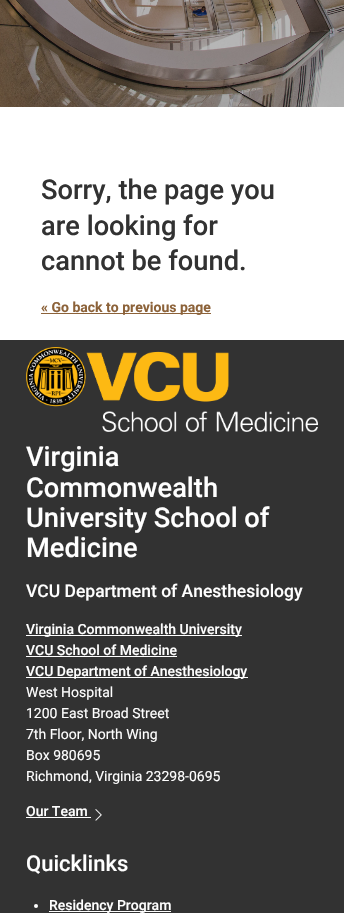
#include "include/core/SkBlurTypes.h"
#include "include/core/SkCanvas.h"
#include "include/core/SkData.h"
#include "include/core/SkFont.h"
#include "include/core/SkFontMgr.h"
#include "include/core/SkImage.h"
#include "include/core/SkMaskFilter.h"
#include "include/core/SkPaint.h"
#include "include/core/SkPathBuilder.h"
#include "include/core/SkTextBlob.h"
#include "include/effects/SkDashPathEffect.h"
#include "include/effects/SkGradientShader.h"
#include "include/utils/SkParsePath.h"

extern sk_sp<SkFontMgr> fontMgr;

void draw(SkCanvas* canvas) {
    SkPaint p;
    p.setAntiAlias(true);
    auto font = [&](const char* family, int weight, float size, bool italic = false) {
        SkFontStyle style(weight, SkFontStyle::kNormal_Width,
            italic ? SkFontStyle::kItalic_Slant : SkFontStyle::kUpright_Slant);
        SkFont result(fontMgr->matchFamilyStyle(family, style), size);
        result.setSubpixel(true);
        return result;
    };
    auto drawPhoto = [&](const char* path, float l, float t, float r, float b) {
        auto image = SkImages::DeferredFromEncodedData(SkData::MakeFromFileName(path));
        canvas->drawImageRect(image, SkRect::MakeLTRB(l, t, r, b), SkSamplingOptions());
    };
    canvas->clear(0xFFFFFFFF);
    drawPhoto("media/1.png", 0, 0, 344, 107);
    auto font1 = font("Roboto", 500, 27.25f);
    p.setColor(0xFF323232);
    {
        const struct { const char* s; float x, y; } items[] = {
            {"Sorry, the page you", 41, 199},
            {"are looking for", 41, 235},
            {"cannot be found.", 41, 270},
        };
        for (auto [s, x, y] : items) {
            canvas->drawString(s, x, y, font1, p);
        }
    }
    p.setColor(0xFF8C6239);
    canvas->drawRect(SkRect::MakeLTRB(41, 313, 211, 314), p);
    auto font2 = font("Roboto", 700, 14);
    canvas->drawString("« Go back to previous page", 41, 312, font2, p);
    p.setColor(0xFF323232);
    canvas->drawRect(SkRect::MakeLTRB(0, 340, 344, 913), p);
    drawPhoto("media/2.png", 26, 347, 318, 432);
    p.setColor(0xFFFFFFFF);
    {
        const struct { const char* s; float x, y; } items[] = {
            {"Virginia", 26, 466},
            {"Commonwealth", 26, 497},
            {"University School of", 26, 527},
            {"Medicine", 26, 557},
        };
        for (auto [s, x, y] : items) {
            canvas->drawString(s, x, y, font1, p);
        }
    }
    auto font3 = font("Roboto", 500, 17.5f);
    canvas->drawString("VCU Department of Anesthesiology", 26, 597, font3, p);
    canvas->drawRect(SkRect::MakeLTRB(26, 635, 242, 636), p);
    auto font4 = font("Roboto", 500, 14);
    canvas->drawString("Virginia Commonwealth University", 26, 634, font4, p);
    canvas->drawString("VCU School of Medicine", 26, 655, font4, p);
    canvas->drawRect(SkRect::MakeLTRB(26, 656, 177, 657), p);
    canvas->drawRect(SkRect::MakeLTRB(26, 677, 248, 678), p);
    canvas->drawString("VCU Department of Anesthesiology", 26, 676, font4, p);
    auto font5 = font("Roboto", 400, 14);
    {
        const struct { const char* s; float x, y; } items[] = {
            {"West Hospital", 26, 697},
            {"1200 East Broad Street", 26, 718},
            {"7th Floor, North Wing", 26, 739},
            {"Box 980695", 26, 760},
            {"Richmond, Virginia 23298-0695", 26, 781},
        };
        for (auto [s, x, y] : items) {
            canvas->drawString(s, x, y, font5, p);
        }
    }
    canvas->drawString("Our Team", 26, 816, font4, p);
    canvas->drawRect(SkRect::MakeLTRB(26, 817, 91, 818), p);
    drawPhoto("media/3.png", 95, 809, 102, 821);
    auto font6 = font("Roboto", 500, 22);
    canvas->drawString("Quicklinks", 26, 871, font6, p);
    canvas->drawCircle(36, 906, 2, p);
    canvas->drawRect(SkRect::MakeLTRB(49, 911, 171, 912), p);
    canvas->drawString("Residency Program", 49, 910, font4, p);
}
